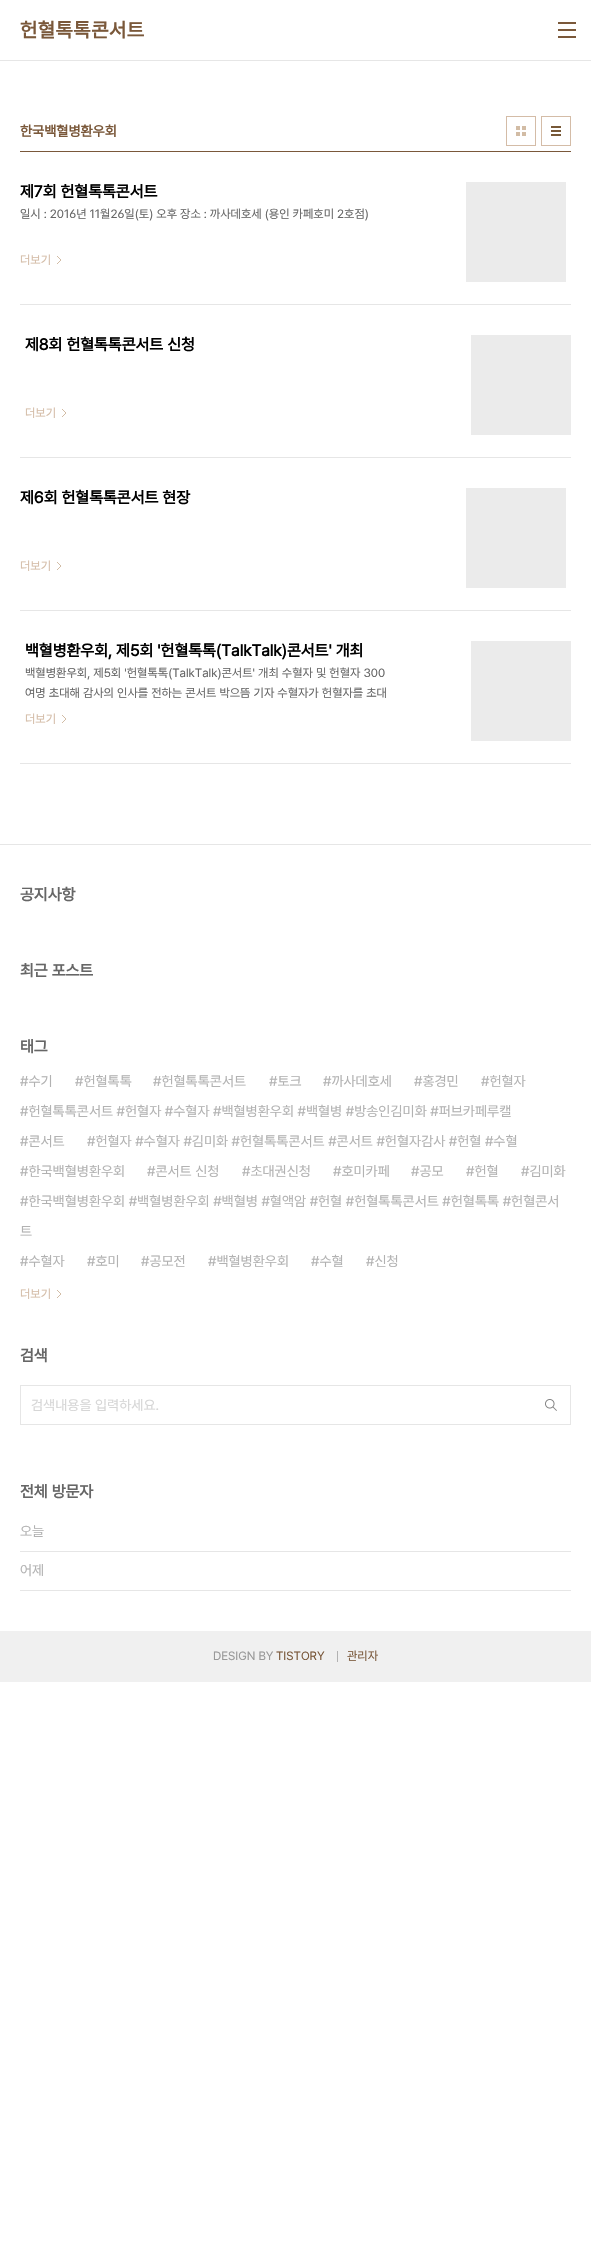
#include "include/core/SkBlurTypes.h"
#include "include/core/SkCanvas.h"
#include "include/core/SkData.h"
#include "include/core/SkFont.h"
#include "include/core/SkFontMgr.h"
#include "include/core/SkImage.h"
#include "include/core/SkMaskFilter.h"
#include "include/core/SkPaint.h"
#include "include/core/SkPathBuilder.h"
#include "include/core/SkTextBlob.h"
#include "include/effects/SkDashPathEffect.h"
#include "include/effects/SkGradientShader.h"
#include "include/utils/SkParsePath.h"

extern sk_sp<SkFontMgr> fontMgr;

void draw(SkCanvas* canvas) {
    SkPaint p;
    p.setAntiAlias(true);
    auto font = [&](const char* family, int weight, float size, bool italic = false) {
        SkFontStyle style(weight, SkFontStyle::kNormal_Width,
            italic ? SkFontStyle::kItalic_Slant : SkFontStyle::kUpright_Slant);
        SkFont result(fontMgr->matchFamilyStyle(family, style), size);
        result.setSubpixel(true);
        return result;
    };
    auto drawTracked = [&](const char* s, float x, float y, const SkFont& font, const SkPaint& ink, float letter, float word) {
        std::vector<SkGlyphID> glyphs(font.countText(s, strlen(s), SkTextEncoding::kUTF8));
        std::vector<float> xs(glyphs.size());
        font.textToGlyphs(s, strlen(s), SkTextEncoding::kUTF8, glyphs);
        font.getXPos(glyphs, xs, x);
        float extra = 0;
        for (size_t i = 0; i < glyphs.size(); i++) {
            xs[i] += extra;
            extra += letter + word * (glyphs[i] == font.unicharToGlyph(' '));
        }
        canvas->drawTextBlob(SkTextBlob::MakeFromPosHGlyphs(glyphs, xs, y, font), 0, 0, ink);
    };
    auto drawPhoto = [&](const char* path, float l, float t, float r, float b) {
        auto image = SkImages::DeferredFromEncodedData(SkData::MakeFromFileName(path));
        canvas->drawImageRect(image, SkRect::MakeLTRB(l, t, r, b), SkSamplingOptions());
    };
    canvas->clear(0xFFFFFFFF);
    p.setColor(0xFFE6E6E6);
    canvas->drawRect(SkRect::MakeLTRB(0, 60, 591, 61), p);
    auto font1 = font("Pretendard", 700, 20);
    p.setColor(0xFF7A583A);
    drawTracked("헌혈톡톡콘서트", 20, 37, font1, p, 0.5f, 0);
    {
        const struct { float l, t, r, b; SkColor color; } items[] = {
            {558, 22, 576, 24, 0xFF7A583A},
            {558, 29, 576, 31, 0xFF7A583A},
            {558, 36, 576, 38, 0xFF7A583A},
            {20, 151, 571, 152, 0xFF7A583A},
        };
        for (auto [l, t, r, b, color] : items) {
            p.setColor(color);
            canvas->drawRect(SkRect::MakeLTRB(l, t, r, b), p);
        }
    }
    auto font2 = font("Pretendard", 700, 14);
    canvas->drawString("한국백혈병환우회", 20, 136, font2, p);
    drawPhoto("media/1.png", 516, 126, 526, 136);
    p.setStyle(SkPaint::kStroke_Style);
    p.setStrokeWidth(1);
    p.setColor(0xFFD4BCA7);
    canvas->drawRect(SkRect::MakeLTRB(506.5f, 116.5f, 535.5f, 145.5f), p);
    drawPhoto("media/2.png", 551, 126, 561, 136);
    canvas->drawRect(SkRect::MakeLTRB(541.5f, 116.5f, 570.5f, 145.5f), p);
    p.setStyle(SkPaint::kFill_Style);
    p.setColor(0xFFE6E6E6);
    canvas->drawRect(SkRect::MakeLTRB(20, 304, 571, 305), p);
    auto font3 = font("Pretendard", 700, 16);
    p.setColor(0xFF000000);
    canvas->drawString("제7회 헌혈톡톡콘서트", 20, 197, font3, p);
    p.setColor(0xFFEBEBEB);
    canvas->drawRect(SkRect::MakeLTRB(466, 182, 566, 282), p);
    auto font4 = font("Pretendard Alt", 400, 12);
    p.setColor(0xFF666666);
    canvas->drawString("일시 : 2016년 11월26일(토) 오후 장소 : 까사데호세 (용인 카페호미 2호점)", 20, 218, font4, p);
    auto font5 = font("Pretendard", 400, 12);
    p.setColor(0xFFD4BCA7);
    canvas->drawString("더보기", 20, 264, font5, p);
    drawPhoto("media/3.png", 57, 256, 61, 264);
    p.setColor(0xFFE6E6E6);
    canvas->drawRect(SkRect::MakeLTRB(20, 457, 571, 458), p);
    p.setColor(0xFF000000);
    canvas->drawString("제8회 헌혈톡톡콘서트 신청", 25, 350, font3, p);
    p.setColor(0xFFEBEBEB);
    canvas->drawRect(SkRect::MakeLTRB(471, 335, 571, 435), p);
    p.setColor(0xFFD4BCA7);
    canvas->drawString("더보기", 25, 417, font5, p);
    drawPhoto("media/3.png", 62, 409, 66, 417);
    p.setColor(0xFFE6E6E6);
    canvas->drawRect(SkRect::MakeLTRB(20, 610, 571, 611), p);
    p.setColor(0xFF000000);
    canvas->drawString("제6회 헌혈톡톡콘서트 현장", 20, 503, font3, p);
    p.setColor(0xFFEBEBEB);
    canvas->drawRect(SkRect::MakeLTRB(466, 488, 566, 588), p);
    p.setColor(0xFFD4BCA7);
    canvas->drawString("더보기", 20, 570, font5, p);
    drawPhoto("media/3.png", 57, 562, 61, 570);
    p.setColor(0xFFE6E6E6);
    canvas->drawRect(SkRect::MakeLTRB(20, 763, 571, 764), p);
    p.setColor(0xFF000000);
    canvas->drawString("백혈병환우회, 제5회 '헌혈톡톡(TalkTalk)콘서트' 개최", 25, 656, font3, p);
    p.setColor(0xFFEBEBEB);
    canvas->drawRect(SkRect::MakeLTRB(471, 641, 571, 741), p);
    p.setColor(0xFF666666);
    canvas->drawString("백혈병환우회, 제5회 '헌혈톡톡(TalkTalk)콘서트' 개최 수혈자 및 헌혈자 300", 25, 677, font5, p);
    canvas->drawString("여명 초대해 감사의 인사를 전하는 콘서트 박으뜸 기자 수혈자가 헌혈자를 초대", 25, 697, font5, p);
    p.setColor(0xFFD4BCA7);
    canvas->drawString("더보기", 25, 723, font5, p);
    drawPhoto("media/3.png", 62, 715, 66, 723);
    p.setColor(0xFFE6E6E6);
    canvas->drawRect(SkRect::MakeLTRB(0, 844, 591, 845), p);
    p.setColor(0xFF666666);
    {
        const struct { const char* s; float x, y; } items[] = {
            {"공지사항", 20, 900},
            {"최근 포스트", 20, 976},
            {"태그", 20, 1052},
        };
        for (auto [s, x, y] : items) {
            canvas->drawString(s, x, y, font3, p);
        }
    }
    auto font6 = font("Pretendard", 400, 14);
    p.setColor(0xFFB2B2B2);
    {
        const struct { const char* s; float x, y; } items[] = {
            {"#수기", 20, 1086},
            {"#헌혈톡톡", 75, 1086},
            {"#헌혈톡톡콘서트", 153, 1086},
            {"#토크", 269, 1086},
            {"#까사데호세", 323, 1086},
            {"#홍경민", 414, 1086},
            {"#헌혈자", 481, 1086},
            {"#헌혈톡톡콘서트 #헌혈자 #수혈자 #백혈병환우회 #백혈병 #방송인김미화 #퍼브카페루캘", 20, 1116},
            {"#콘서트", 20, 1146},
            {"#헌혈자 #수혈자 #김미화 #헌혈톡톡콘서트 #콘서트 #헌혈자감사 #헌혈 #수혈", 87, 1146},
            {"#한국백혈병환우회", 20, 1176},
            {"#콘서트 신청", 147, 1176},
            {"#초대권신청", 242, 1176},
            {"#호미카페", 333, 1176},
            {"#공모", 411, 1176},
            {"#헌혈", 466, 1176},
            {"#김미화", 521, 1176},
            {"#한국백혈병환우회 #백혈병환우회 #백혈병 #혈액암 #헌혈 #헌혈톡톡콘서트 #헌혈톡톡 #헌혈콘서", 20, 1206},
            {"트", 20, 1236},
            {"#수혈자", 20, 1266},
            {"#호미", 87, 1266},
            {"#공모전", 141, 1266},
            {"#백혈병환우회", 208, 1266},
            {"#수혈", 311, 1266},
            {"#신청", 366, 1266},
        };
        for (auto [s, x, y] : items) {
            canvas->drawString(s, x, y, font6, p);
        }
    }
    p.setColor(0xFFD4BCA7);
    canvas->drawString("더보기", 20, 1298, font5, p);
    drawPhoto("media/3.png", 57, 1290, 61, 1298);
    p.setColor(0xFF666666);
    canvas->drawString("검색", 20, 1361, font3, p);
    p.setStyle(SkPaint::kStroke_Style);
    p.setColor(0xFFE6E6E6);
    canvas->drawRect(SkRect::MakeLTRB(20.5f, 1385.5f, 570.5f, 1424.5f), p);
    p.setStyle(SkPaint::kFill_Style);
    p.setColor(0xFFD6D6D6);
    canvas->drawString("검색내용을 입력하세요.", 31, 1410, font6, p);
    drawPhoto("media/4.png", 545, 1399, 557, 1411);
    p.setColor(0xFF666666);
    canvas->drawString("전체 방문자", 20, 1497, font3, p);
    p.setColor(0xFFE6E6E6);
    canvas->drawRect(SkRect::MakeLTRB(20, 1551, 571, 1552), p);
    p.setColor(0xFFB2B2B2);
    canvas->drawString("오늘", 20, 1536, font6, p);
    p.setColor(0xFFE6E6E6);
    canvas->drawRect(SkRect::MakeLTRB(20, 1590, 571, 1591), p);
    p.setColor(0xFFB2B2B2);
    canvas->drawString("어제", 20, 1575, font6, p);
    p.setColor(0xFFF0F0F0);
    canvas->drawRect(SkRect::MakeLTRB(0, 1631, 591, 1682), p);
    p.setColor(0xFF999999);
    canvas->drawString("DESIGN BY", 213, 1660, font5, p);
    p.setColor(0xFF7A583A);
    canvas->drawString("TISTORY", 276, 1660, font5, p);
    p.setColor(0xFFB2B2B2);
    canvas->drawRect(SkRect::MakeLTRB(337, 1651, 338, 1662), p);
    p.setColor(0xFF7A583A);
    canvas->drawString("관리자", 347, 1660, font5, p);
}
